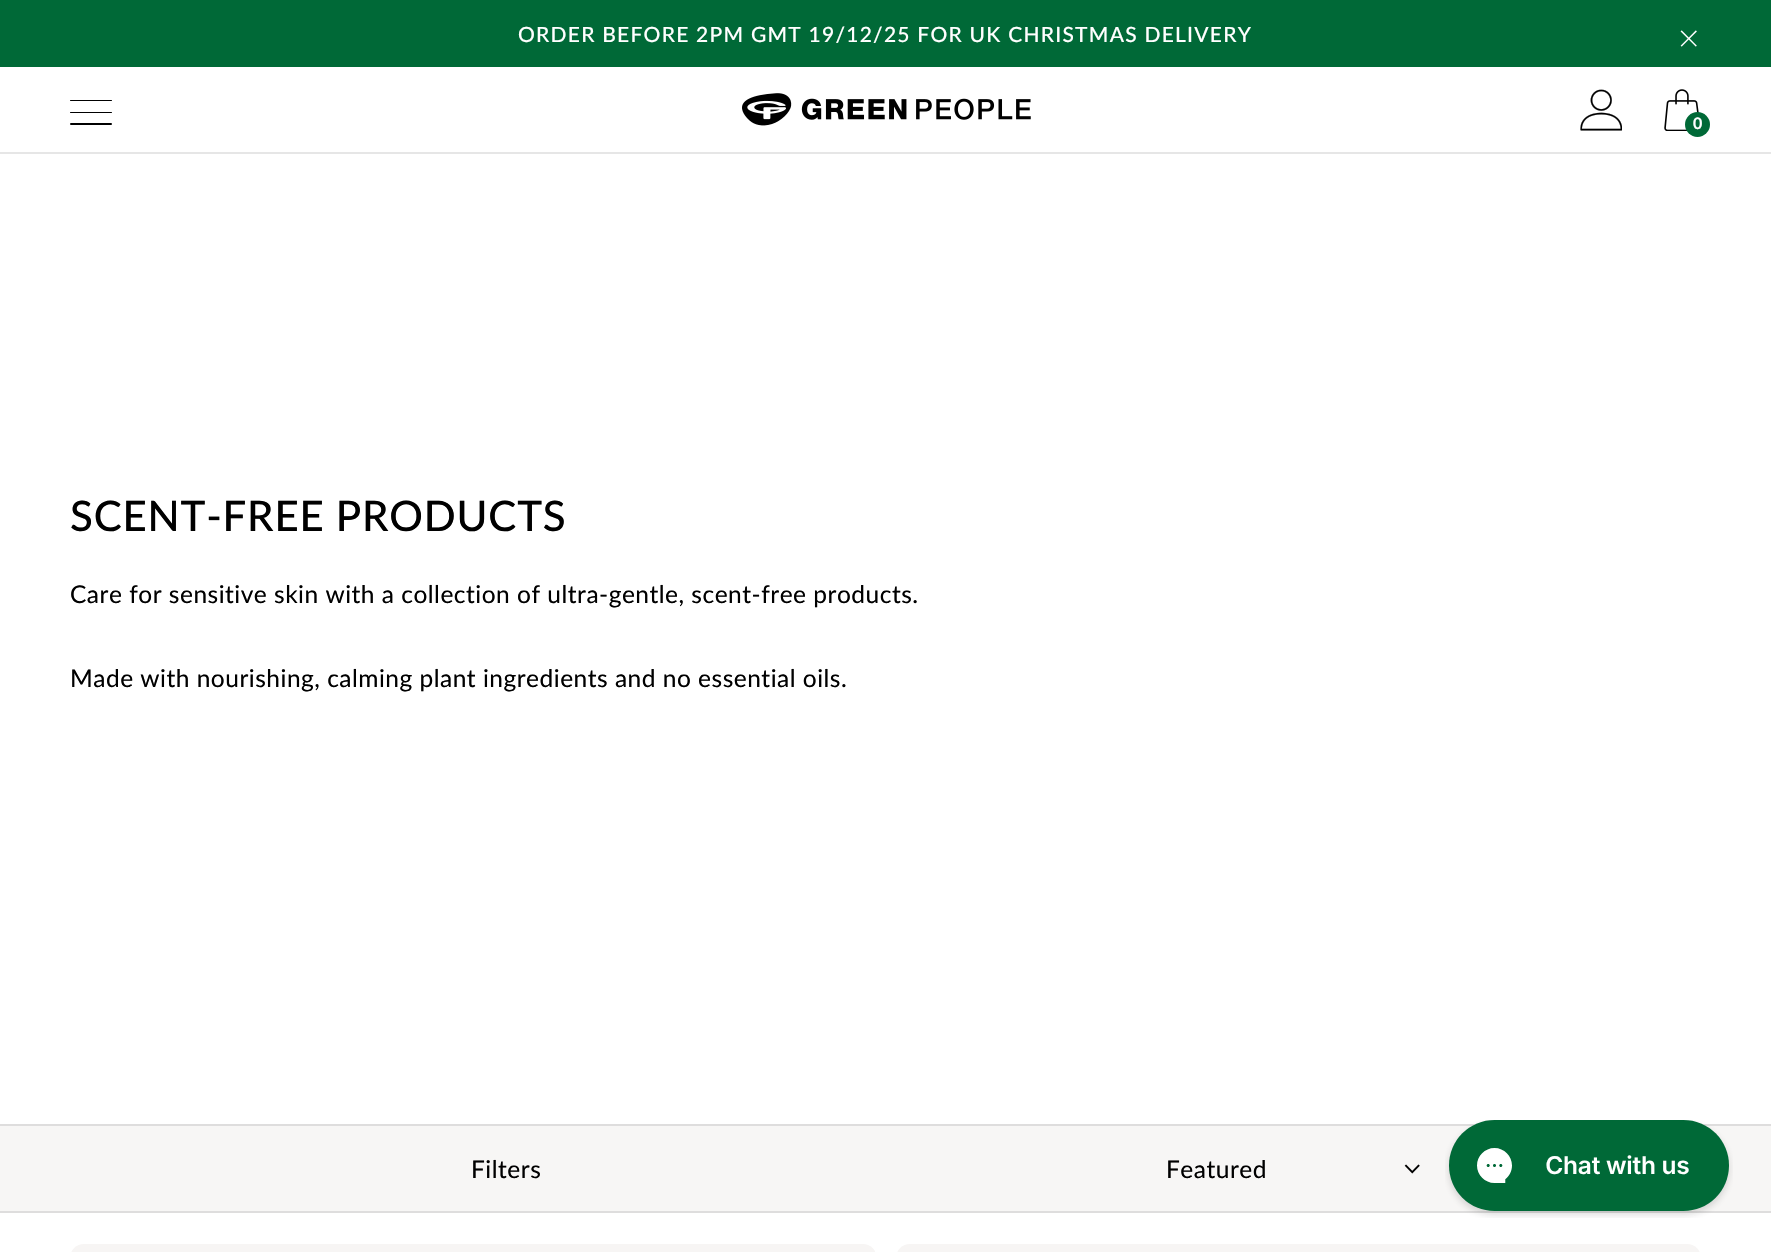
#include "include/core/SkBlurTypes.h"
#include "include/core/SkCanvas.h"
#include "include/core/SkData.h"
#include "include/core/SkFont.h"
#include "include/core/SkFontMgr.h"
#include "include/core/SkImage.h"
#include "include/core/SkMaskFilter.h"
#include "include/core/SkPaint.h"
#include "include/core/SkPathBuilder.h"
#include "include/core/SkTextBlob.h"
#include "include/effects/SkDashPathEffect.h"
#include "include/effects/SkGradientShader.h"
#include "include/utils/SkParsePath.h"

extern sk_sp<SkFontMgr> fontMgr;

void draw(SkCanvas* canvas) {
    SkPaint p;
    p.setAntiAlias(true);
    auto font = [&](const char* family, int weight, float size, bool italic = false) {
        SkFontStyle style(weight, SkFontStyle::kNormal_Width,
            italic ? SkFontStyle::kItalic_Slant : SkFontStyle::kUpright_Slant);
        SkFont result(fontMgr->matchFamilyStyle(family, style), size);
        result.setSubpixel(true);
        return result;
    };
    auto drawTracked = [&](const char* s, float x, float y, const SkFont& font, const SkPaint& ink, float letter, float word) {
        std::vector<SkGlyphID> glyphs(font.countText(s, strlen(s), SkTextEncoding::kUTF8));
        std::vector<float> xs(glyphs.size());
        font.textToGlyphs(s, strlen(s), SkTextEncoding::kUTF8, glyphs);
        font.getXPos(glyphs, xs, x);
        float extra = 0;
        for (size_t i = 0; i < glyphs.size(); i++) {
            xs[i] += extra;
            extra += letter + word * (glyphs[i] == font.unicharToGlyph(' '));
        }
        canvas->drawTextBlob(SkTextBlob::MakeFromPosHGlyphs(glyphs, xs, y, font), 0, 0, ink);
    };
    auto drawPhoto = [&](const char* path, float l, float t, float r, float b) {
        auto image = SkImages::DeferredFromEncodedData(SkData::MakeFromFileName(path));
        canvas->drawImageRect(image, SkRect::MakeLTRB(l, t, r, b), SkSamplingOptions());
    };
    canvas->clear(0xFFFFFFFF);
    p.setColor(0xFFE6E6E6);
    canvas->drawRect(SkRect::MakeLTRB(0, 152, 1771, 154), p);
    p.setColor(0xFF006937);
    canvas->drawRect(SkRect::MakeLTRB(0, 0, 1771, 67), p);
    auto font1 = font("Lato", 500, 21);
    p.setColor(0xFFFFFFFF);
    drawTracked("ORDER BEFORE 2PM GMT 19/12/25 FOR UK CHRISTMAS DELIVERY", 518, 42, font1, p, 1.25f, 0);
    drawPhoto("media/1.png", 1680, 30, 1697, 47);
    p.setColor(0xFF000000);
    canvas->drawRoundRect(SkRect::MakeLTRB(70, 100, 112, 101), 0.5f, 0.5f, p);
    canvas->drawRoundRect(SkRect::MakeLTRB(70, 112, 112, 113), 0.5f, 0.5f, p);
    canvas->drawRoundRect(SkRect::MakeLTRB(70, 123, 112, 125), 1, 1, p);
    drawPhoto("media/2.png", 742, 93, 1031, 126);
    drawPhoto("media/3.png", 1580, 89, 1622, 131);
    drawPhoto("media/4.png", 1664, 89, 1699, 131);
    p.setColor(0xFF006937);
    canvas->drawCircle(1697.5f, 124.5f, 12.5f, p);
    auto font2 = font("Lato", 700, 16);
    p.setColor(0xFFFFFFFF);
    drawTracked("0", 1693, 129, font2, p, 0.5f, 0);
    auto font3 = font("Lato", 500, 42);
    p.setColor(0xFF000000);
    drawTracked("SCENT-FREE PRODUCTS", 70, 531, font3, p, 0.8f, 0);
    auto font4 = font("Lato", 400, 24.5f);
    drawTracked("Care for sensitive skin with a collection of ultra-gentle, scent-free products.", 70, 603, font4, p, 0.5f, 0);
    drawTracked("Made with nourishing, calming plant ingredients and no essential oils.", 70, 687, font4, p, 0.5f, 0);
    {
        const struct { float l, t, r, b; SkColor color; } items[] = {
            {0, 1126, 1771, 1211, 0xFFF7F6F5},
            {0, 1124, 1771, 1126, 0xFFDEDDDD},
            {0, 1211, 1771, 1213, 0xFFDEDDDD},
        };
        for (auto [l, t, r, b, color] : items) {
            p.setColor(color);
            canvas->drawRect(SkRect::MakeLTRB(l, t, r, b), p);
        }
    }
    p.setColor(0xFF000000);
    drawTracked("Filters", 471, 1178, font4, p, 0.5f, 0);
    drawPhoto("media/5.png", 1404, 1164, 1420, 1174);
    drawTracked("Featured", 1166, 1178, font4, p, 0.5f, 0);
    drawPhoto("media/6.png", 71, 1244, 875, 1252);
    drawPhoto("media/7.png", 897, 1244, 1700, 1252);
    drawPhoto("media/8.png", 1445, 1120, 1733, 1218);
}
